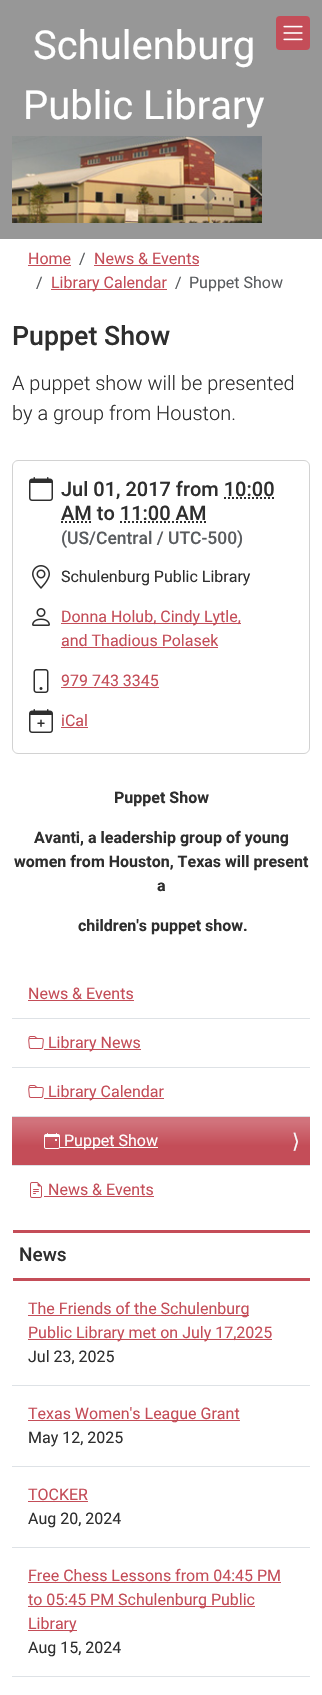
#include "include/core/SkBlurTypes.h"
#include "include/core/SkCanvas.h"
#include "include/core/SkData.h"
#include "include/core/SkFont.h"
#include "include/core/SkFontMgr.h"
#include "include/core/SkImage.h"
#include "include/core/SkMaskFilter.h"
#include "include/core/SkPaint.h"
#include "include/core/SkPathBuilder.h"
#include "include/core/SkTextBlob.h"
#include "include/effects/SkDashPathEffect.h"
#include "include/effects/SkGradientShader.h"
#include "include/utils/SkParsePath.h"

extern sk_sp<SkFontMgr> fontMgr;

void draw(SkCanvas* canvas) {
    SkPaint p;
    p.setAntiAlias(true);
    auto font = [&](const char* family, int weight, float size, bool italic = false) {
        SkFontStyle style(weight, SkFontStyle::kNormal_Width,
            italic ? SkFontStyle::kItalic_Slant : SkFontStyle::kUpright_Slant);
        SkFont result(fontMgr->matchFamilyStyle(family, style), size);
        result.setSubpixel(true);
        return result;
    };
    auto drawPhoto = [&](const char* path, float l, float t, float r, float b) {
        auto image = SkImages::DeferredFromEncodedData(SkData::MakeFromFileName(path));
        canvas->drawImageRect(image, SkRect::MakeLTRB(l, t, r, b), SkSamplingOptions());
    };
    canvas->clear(0xFFFFFFFF);
    p.setColor(0xFF979797);
    canvas->drawRect(SkRect::MakeLTRB(0, 0, 322, 239), p);
    auto font1 = font("Roboto", 400, 40);
    p.setColor(0xFFFFFFFF);
    canvas->drawString("Schulenburg", 33, 59, font1, p);
    canvas->drawString("Public Library", 23, 119, font1, p);
    p.setColor(0xFFC44D58);
    canvas->drawRoundRect(SkRect::MakeLTRB(276, 16, 310, 50), 4, 4, p);
    drawPhoto("media/1.png", 283, 25, 303, 41);
    drawPhoto("media/2.png", 12, 136, 262, 223);
    auto font2 = font("Roboto", 400, 16);
    canvas->drawString("Home", 28, 264, font2, p);
    canvas->drawRect(SkRect::MakeLTRB(28, 265, 71, 266), p);
    p.setColor(0xFF595C5F);
    canvas->drawString("/", 79, 264, font2, p);
    p.setColor(0xFFC44D58);
    canvas->drawString("News & Events", 94, 264, font2, p);
    canvas->drawRect(SkRect::MakeLTRB(94, 265, 199, 266), p);
    p.setColor(0xFF595C5F);
    canvas->drawString("/", 36, 288, font2, p);
    p.setColor(0xFFC44D58);
    canvas->drawRect(SkRect::MakeLTRB(51, 289, 167, 290), p);
    canvas->drawString("Library Calendar", 51, 288, font2, p);
    p.setColor(0xFF595C5F);
    canvas->drawString("/", 175, 288, font2, p);
    canvas->drawString("Puppet Show", 189, 288, font2, p);
    auto font3 = font("Roboto", 500, 26.75f);
    p.setColor(0xFF2E2E2E);
    canvas->drawString("Puppet Show", 12, 345, font3, p);
    auto font4 = font("Roboto", 300, 20);
    canvas->drawString("A puppet show will be presented", 12, 390, font4, p);
    canvas->drawString("by a group from Houston.", 12, 420, font4, p);
    p.setStyle(SkPaint::kStroke_Style);
    p.setStrokeWidth(1);
    p.setColor(0xFFD2D2D2);
    canvas->drawRoundRect(SkRect::MakeLTRB(12.5f, 460.5f, 309.5f, 753.5f), 5.5f, 5.5f, p);
    drawPhoto("media/3.png", 29, 477, 53, 501);
    auto font5 = font("Roboto", 500, 20);
    p.setStyle(SkPaint::kFill_Style);
    p.setColor(0xFF2E2E2E);
    canvas->drawString("Jul 01, 2017 from 10:00", 61, 496, font5, p);
    p.setStyle(SkPaint::kStroke_Style);
    p.setStrokeWidth(2);
    p.setPathEffect(SkDashPathEffect::Make({{2, 2}}, 0));
    canvas->drawPath(SkPathBuilder().moveTo(224, 498).lineTo(274.5f, 498).detach(), p);
    p.setPathEffect(nullptr);
    p.setStyle(SkPaint::kFill_Style);
    canvas->drawString("AM to 11:00 AM", 61, 520, font5, p);
    p.setStyle(SkPaint::kStroke_Style);
    p.setPathEffect(SkDashPathEffect::Make({{2, 2}}, 0));
    canvas->drawPath(SkPathBuilder().moveTo(61, 522).lineTo(92, 522).detach(), p);
    p.setPathEffect(nullptr);
    p.setPathEffect(SkDashPathEffect::Make({{2, 2}}, 0));
    canvas->drawPath(SkPathBuilder().moveTo(120, 522).lineTo(206.5f, 522).detach(), p);
    p.setPathEffect(nullptr);
    auto font6 = font("Roboto", 500, 17.5f);
    p.setStyle(SkPaint::kFill_Style);
    p.setColor(0xFF595C5F);
    canvas->drawString("(US/Central / UTC-500)", 61, 544, font6, p);
    drawPhoto("media/4.png", 32, 565, 50, 589);
    p.setColor(0xFF2E2E2E);
    canvas->drawString("Schulenburg Public Library", 61, 582, font2, p);
    drawPhoto("media/5.png", 32, 608, 50, 626);
    p.setColor(0xFFC44D58);
    canvas->drawRect(SkRect::MakeLTRB(61, 623, 241, 624), p);
    canvas->drawString("Donna Holub, Cindy Lytle,", 61, 622, font2, p);
    canvas->drawString("and Thadious Polasek", 61, 646, font2, p);
    canvas->drawRect(SkRect::MakeLTRB(61, 647, 218, 648), p);
    drawPhoto("media/6.png", 33, 669, 49, 693);
    canvas->drawString("979 743 3345", 61, 686, font2, p);
    canvas->drawRect(SkRect::MakeLTRB(61, 687, 159, 688), p);
    drawPhoto("media/7.png", 29, 709, 53, 733);
    canvas->drawString("iCal", 61, 726, font2, p);
    canvas->drawRect(SkRect::MakeLTRB(61, 727, 88, 728), p);
    auto font7 = font("Roboto", 700, 16);
    p.setColor(0xFF2E2E2E);
    {
        const struct { const char* s; float x, y; } items[] = {
            {"Puppet Show", 114, 803},
            {"Avanti, a leadership group of young", 34, 843},
            {"women from Houston, Texas will present", 14, 867},
            {"a", 157, 891},
            {"children's puppet show.", 78, 931},
        };
        for (auto [s, x, y] : items) {
            canvas->drawString(s, x, y, font7, p);
        }
    }
    p.setColor(0xFFC44D58);
    canvas->drawString("News & Events", 28, 999, font2, p);
    canvas->drawRect(SkRect::MakeLTRB(28, 1000, 134, 1001), p);
    p.setColor(0xFFDEE2E6);
    canvas->drawRect(SkRect::MakeLTRB(12, 1018, 310, 1019), p);
    drawPhoto("media/8.png", 28, 1036, 44, 1049);
    p.setColor(0xFFC44D58);
    canvas->drawRect(SkRect::MakeLTRB(44, 1049, 141, 1050), p);
    canvas->drawString("Library News", 48, 1048, font2, p);
    p.setColor(0xFFDEE2E6);
    canvas->drawRect(SkRect::MakeLTRB(12, 1067, 310, 1068), p);
    drawPhoto("media/8.png", 28, 1085, 44, 1098);
    p.setColor(0xFFC44D58);
    canvas->drawRect(SkRect::MakeLTRB(44, 1098, 164, 1099), p);
    canvas->drawString("Library Calendar", 48, 1097, font2, p);
    p.setColor(0xFFDEE2E6);
    canvas->drawRect(SkRect::MakeLTRB(12, 1116, 310, 1117), p);
    {
        const SkColor colors[] = {0xFFD1737C, 0xFFC44D58};
        const float stops[] = {0.1f, 0.6f};
        const SkPoint ends[] = {{161, 1117}, {161, 1165}};
        p.setShader(SkGradientShader::MakeLinear(ends, colors, stops, 2, SkTileMode::kClamp));
        p.setAlpha(255);
    }
    canvas->drawRect(SkRect::MakeLTRB(12, 1117, 310, 1165), p);
    drawPhoto("media/9.png", 44, 1133, 60, 1149);
    p.setShader(nullptr);
    p.setColor(0xFFFFFFFF);
    canvas->drawRect(SkRect::MakeLTRB(60, 1147, 158, 1148), p);
    canvas->drawString("Puppet Show", 64, 1146, font2, p);
    auto font8 = font("DejaVu Sans", 400, 20);
    p.setColor(0xFFF8F9FA);
    canvas->drawString("⟩", 292, 1148, font8, p);
    p.setColor(0xFFDEE2E6);
    canvas->drawRect(SkRect::MakeLTRB(12, 1165, 310, 1166), p);
    drawPhoto("media/10.png", 30, 1182, 42, 1198);
    p.setColor(0xFFC44D58);
    canvas->drawString("News & Events", 48, 1195, font2, p);
    {
        const struct { float l, t, r, b; SkColor color; } items[] = {
            {44, 1196, 154, 1197, 0xFFC44D58},
            {13, 1230, 310, 1233, 0xFFC44D58},
            {13, 1278, 310, 1281, 0xFFC44D58},
        };
        for (auto [l, t, r, b, color] : items) {
            p.setColor(color);
            canvas->drawRect(SkRect::MakeLTRB(l, t, r, b), p);
        }
    }
    auto font9 = font("Roboto", 500, 19);
    p.setColor(0xFF2E2E2E);
    canvas->drawString("News", 19, 1261, font9, p);
    p.setColor(0xFFC44D58);
    canvas->drawRect(SkRect::MakeLTRB(28, 1315, 249, 1316), p);
    canvas->drawString("The Friends of the Schulenburg", 28, 1314, font2, p);
    canvas->drawRect(SkRect::MakeLTRB(28, 1339, 272, 1340), p);
    canvas->drawString("Public Library met on July 17,2025", 28, 1338, font2, p);
    p.setColor(0xFF2E2E2E);
    canvas->drawString("Jul 23, 2025", 28, 1362, font2, p);
    p.setColor(0xFFDEE2E6);
    canvas->drawRect(SkRect::MakeLTRB(12, 1385, 310, 1386), p);
    p.setColor(0xFFC44D58);
    canvas->drawRect(SkRect::MakeLTRB(28, 1420, 240, 1421), p);
    canvas->drawString("Texas Women's League Grant", 28, 1419, font2, p);
    p.setColor(0xFF2E2E2E);
    canvas->drawString("May 12, 2025", 28, 1443, font2, p);
    p.setColor(0xFFDEE2E6);
    canvas->drawRect(SkRect::MakeLTRB(12, 1466, 310, 1467), p);
    p.setColor(0xFFC44D58);
    canvas->drawString("TOCKER", 28, 1500, font2, p);
    canvas->drawRect(SkRect::MakeLTRB(28, 1501, 88, 1502), p);
    p.setColor(0xFF2E2E2E);
    canvas->drawString("Aug 20, 2024", 28, 1524, font2, p);
    p.setColor(0xFFDEE2E6);
    canvas->drawRect(SkRect::MakeLTRB(12, 1547, 310, 1548), p);
    p.setColor(0xFFC44D58);
    canvas->drawString("Free Chess Lessons from 04:45 PM", 28, 1581, font2, p);
    canvas->drawRect(SkRect::MakeLTRB(28, 1582, 281, 1583), p);
    canvas->drawRect(SkRect::MakeLTRB(28, 1606, 255, 1607), p);
    canvas->drawString("to 05:45 PM Schulenburg Public", 28, 1605, font2, p);
    canvas->drawRect(SkRect::MakeLTRB(28, 1630, 77, 1631), p);
    canvas->drawString("Library", 28, 1629, font2, p);
    p.setColor(0xFF2E2E2E);
    canvas->drawString("Aug 15, 2024", 28, 1653, font2, p);
    p.setColor(0xFFDEE2E6);
    canvas->drawRect(SkRect::MakeLTRB(12, 1676, 310, 1677), p);
}
